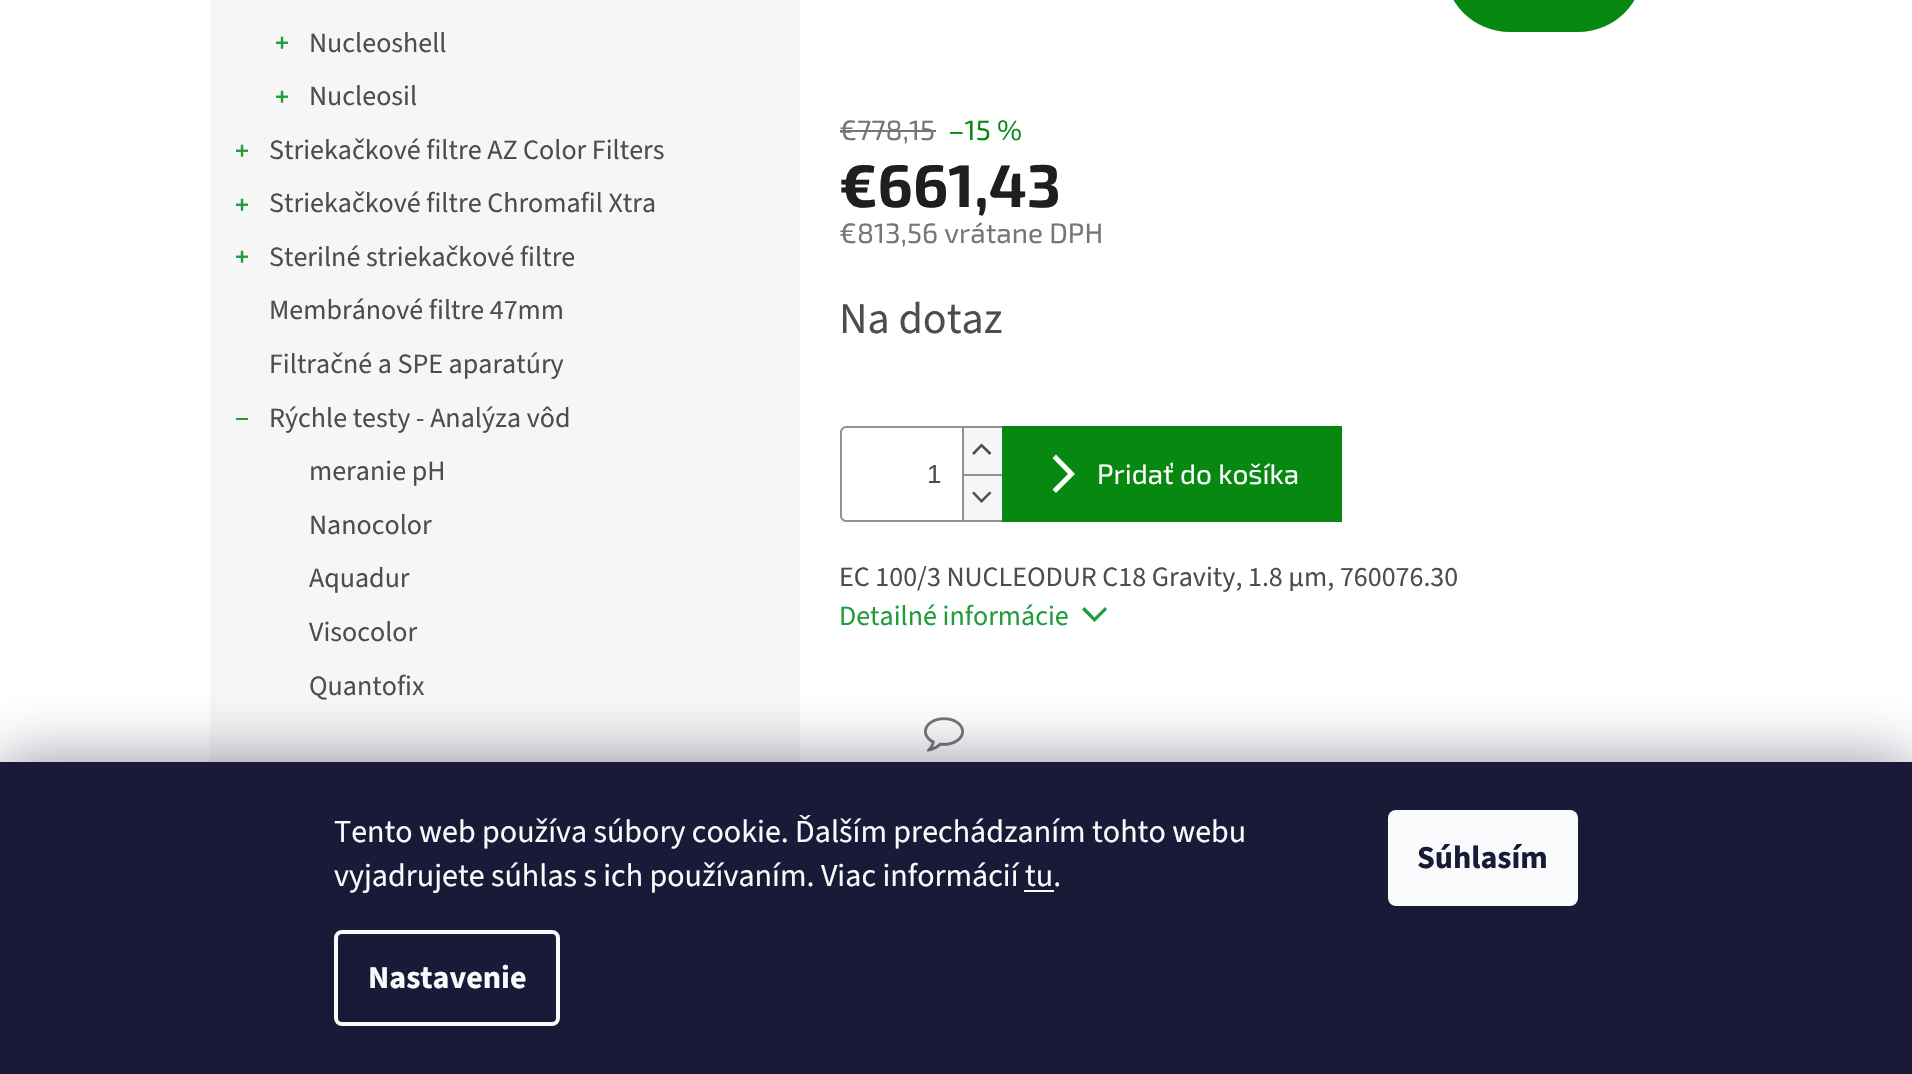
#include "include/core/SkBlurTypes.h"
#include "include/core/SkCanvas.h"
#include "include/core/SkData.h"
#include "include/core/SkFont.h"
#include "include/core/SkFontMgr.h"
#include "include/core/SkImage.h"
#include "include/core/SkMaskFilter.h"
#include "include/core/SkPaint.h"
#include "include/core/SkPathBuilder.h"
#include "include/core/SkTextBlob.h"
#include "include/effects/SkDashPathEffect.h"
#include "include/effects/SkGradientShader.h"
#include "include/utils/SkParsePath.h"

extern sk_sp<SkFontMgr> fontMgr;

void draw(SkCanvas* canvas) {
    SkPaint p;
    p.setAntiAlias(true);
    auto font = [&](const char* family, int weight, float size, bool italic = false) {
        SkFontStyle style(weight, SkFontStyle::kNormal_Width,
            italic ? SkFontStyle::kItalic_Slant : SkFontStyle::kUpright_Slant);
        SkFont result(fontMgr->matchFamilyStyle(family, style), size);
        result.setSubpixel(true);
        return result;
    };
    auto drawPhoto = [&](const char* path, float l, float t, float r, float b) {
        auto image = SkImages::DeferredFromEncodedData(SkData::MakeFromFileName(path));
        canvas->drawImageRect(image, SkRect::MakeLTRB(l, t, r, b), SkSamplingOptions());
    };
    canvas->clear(0xFFFFFFFF);
    p.setColor(0xFFF6F6F6);
    canvas->drawRect(SkRect::MakeLTRB(210, 0, 800, 762), p);
    drawPhoto("media/1.png", 276, 36, 288, 49);
    auto font1 = font("Source Sans 3", 400, 28);
    p.setColor(0xFF4D4D4D);
    canvas->drawString("Nucleoshell", 309, 52, font1, p);
    drawPhoto("media/1.png", 276, 90, 288, 103);
    canvas->drawString("Nucleosil", 309, 105, font1, p);
    drawPhoto("media/1.png", 236, 144, 248, 157);
    canvas->drawString("Striekačkové filtre AZ Color Filters", 269, 159, font1, p);
    drawPhoto("media/1.png", 236, 198, 248, 211);
    canvas->drawString("Striekačkové filtre Chromafil Xtra", 269, 212, font1, p);
    drawPhoto("media/1.png", 236, 250, 248, 263);
    {
        const struct { const char* s; float x, y; } items[] = {
            {"Sterilné striekačkové filtre", 269, 266},
            {"Membránové filtre 47mm", 269, 319},
            {"Filtračné a SPE aparatúry", 269, 373},
        };
        for (auto [s, x, y] : items) {
            canvas->drawString(s, x, y, font1, p);
        }
    }
    p.setColor(0xFF219C3A);
    canvas->drawRect(SkRect::MakeLTRB(236, 418, 248, 420), p);
    p.setColor(0xFF4D4D4D);
    {
        const struct { const char* s; float x, y; } items[] = {
            {"Rýchle testy - Analýza vôd", 269, 427},
            {"meranie pH", 309, 480},
            {"Nanocolor", 309, 534},
            {"Aquadur", 309, 587},
            {"Visocolor", 309, 641},
            {"Quantofix", 309, 695},
        };
        for (auto [s, x, y] : items) {
            canvas->drawString(s, x, y, font1, p);
        }
    }
    p.setColor(0xFF078810);
    canvas->drawRoundRect(SkRect::MakeLTRB(1444, -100, 1644, 32), 100, 100, p);
    auto font2 = font("Exo 2", 400, 28);
    p.setColor(0xFF767676);
    canvas->drawString("€778,15", 839, 140, font2, p);
    canvas->drawRect(SkRect::MakeLTRB(840, 130, 936, 132), p);
    p.setColor(0xFF078810);
    canvas->drawString("–15 %", 948, 140, font2, p);
    auto font3 = font("Exo 2", 700, 60);
    p.setColor(0xFF1F1F1F);
    canvas->drawString("€661,43", 839, 207, font3, p);
    p.setColor(0xFF767676);
    canvas->drawString("€813,56 vrátane DPH", 839, 243, font2, p);
    auto font4 = font("Source Sans 3", 400, 44);
    p.setColor(0xFF4D4D4D);
    canvas->drawString("Na dotaz", 839, 333, font4, p);
    p.setColor(0xFF919191);
    canvas->drawPath(SkPathBuilder(SkPathFillType::kEvenOdd).moveTo(846, 426).lineTo(1002, 426).lineTo(1002, 522).lineTo(846, 522).cubicTo(843, 522, 840, 519, 840, 516).lineTo(840, 432).cubicTo(840, 429, 843, 426, 846, 426).close().moveTo(846, 428).lineTo(1002, 428).lineTo(1002, 520).lineTo(846, 520).cubicTo(844, 520, 842, 518, 842, 516).lineTo(842, 432).cubicTo(842, 430, 844, 428, 846, 428).close().detach(), p);
    auto font5 = font("Liberation Sans", 400, 26);
    p.setColor(0xFF4D4D4D);
    canvas->drawString("1", 927, 483, font5, p);
    p.setColor(0xFFF6F6F6);
    canvas->drawRect(SkRect::MakeLTRB(964, 428, 1002, 474), p);
    p.setColor(0xFF919191);
    canvas->drawRect(SkRect::MakeLTRB(962, 428, 964, 474), p);
    p.setColor(0xFF4D4D4D);
    canvas->drawPath(SkPathBuilder().moveTo(972, 453).lineTo(974, 455).lineTo(981.5f, 447).lineTo(989.5f, 455).lineTo(991.5f, 453).lineTo(981.5f, 443.5f).close().detach(), p);
    {
        const struct { float l, t, r, b; SkColor color; } items[] = {
            {964, 476, 1002, 520, 0xFFF6F6F6},
            {962, 474, 1002, 476, 0xFF919191},
            {962, 474, 964, 520, 0xFF919191},
        };
        for (auto [l, t, r, b, color] : items) {
            p.setColor(color);
            canvas->drawRect(SkRect::MakeLTRB(l, t, r, b), p);
        }
    }
    p.setColor(0xFF4D4D4D);
    canvas->drawPath(SkPathBuilder().moveTo(972, 493).lineTo(974, 491.5f).lineTo(981.5f, 499.5f).lineTo(989.5f, 491.5f).lineTo(991.5f, 493).lineTo(981.5f, 503).close().detach(), p);
    p.setColor(0xFF078810);
    canvas->drawRect(SkRect::MakeLTRB(1002, 426, 1342, 522), p);
    p.setColor(0xFFFFFFFF);
    canvas->drawPath(SkPathBuilder().moveTo(1056, 493).lineTo(1052.5f, 489.5f).lineTo(1068, 474).lineTo(1052.5f, 458).lineTo(1056, 454.5f).lineTo(1075, 474).close().detach(), p);
    canvas->drawString("Pridať do košíka", 1097, 484, font2, p);
    p.setColor(0xFF4D4D4D);
    canvas->drawString("EC 100/3 NUCLEODUR C18 Gravity, 1.8 µm, 760076.30", 839, 586, font1, p);
    p.setColor(0xFF219C3A);
    canvas->drawString("Detailné informácie", 839, 625, font1, p);
    canvas->drawPath(SkPathBuilder().moveTo(1082, 609.5f).lineTo(1084.5f, 607).lineTo(1094.5f, 617.5f).lineTo(1105, 607).lineTo(1107, 609.5f).lineTo(1094.5f, 622).close().detach(), p);
    drawPhoto("media/2.png", 924, 717, 964, 752);
    p.setColor(0x801B1939);
    p.setMaskFilter(SkMaskFilter::MakeBlur(kNormal_SkBlurStyle, 30));
    canvas->drawRect(SkRect::MakeLTRB(0, 762, 1912, 1074), p);
    p.setMaskFilter(nullptr);
    p.setColor(0xFF1A1937);
    canvas->drawRect(SkRect::MakeLTRB(0, 762, 1912, 1074), p);
    auto font6 = font("Source Sans 3", 400, 32);
    p.setColor(0xFFF8FAFB);
    canvas->drawString("Tento web používa súbory cookie. Ďalším prechádzaním tohto webu", 334, 842, font6, p);
    canvas->drawString("vyjadrujete súhlas s ich používaním. Viac informácií tu.", 334, 886, font6, p);
    canvas->drawRect(SkRect::MakeLTRB(1024, 890, 1054, 892), p);
    p.setStyle(SkPaint::kStroke_Style);
    p.setStrokeWidth(4);
    canvas->drawRoundRect(SkRect::MakeLTRB(336, 932, 558, 1024), 6, 6, p);
    auto font7 = font("Source Sans 3", 700, 32);
    p.setStyle(SkPaint::kFill_Style);
    canvas->drawString("Nastavenie", 368, 988, font7, p);
    canvas->drawRoundRect(SkRect::MakeLTRB(1388, 810, 1578, 906), 8, 8, p);
    p.setColor(0xFF1A1937);
    canvas->drawString("Súhlasím", 1417, 868, font7, p);
}
